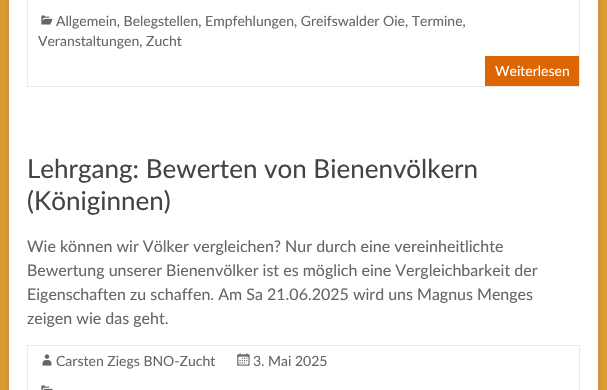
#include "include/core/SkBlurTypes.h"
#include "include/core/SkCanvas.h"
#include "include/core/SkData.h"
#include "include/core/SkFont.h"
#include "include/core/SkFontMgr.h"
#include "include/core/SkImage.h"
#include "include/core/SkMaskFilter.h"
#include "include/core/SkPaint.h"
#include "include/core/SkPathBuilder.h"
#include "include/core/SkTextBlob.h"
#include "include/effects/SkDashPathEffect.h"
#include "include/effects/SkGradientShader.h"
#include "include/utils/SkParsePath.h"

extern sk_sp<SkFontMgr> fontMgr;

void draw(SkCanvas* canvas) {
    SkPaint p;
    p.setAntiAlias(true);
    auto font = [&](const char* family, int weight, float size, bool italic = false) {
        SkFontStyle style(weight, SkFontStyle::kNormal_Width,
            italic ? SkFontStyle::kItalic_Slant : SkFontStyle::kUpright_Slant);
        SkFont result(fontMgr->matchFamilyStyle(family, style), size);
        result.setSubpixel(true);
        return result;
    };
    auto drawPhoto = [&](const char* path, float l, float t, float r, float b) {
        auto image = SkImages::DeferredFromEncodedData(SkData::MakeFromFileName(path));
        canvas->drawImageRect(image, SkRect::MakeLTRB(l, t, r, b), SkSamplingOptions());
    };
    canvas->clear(0xFFDD9933);
    p.setColor(0x4D646464);
    p.setMaskFilter(SkMaskFilter::MakeBlur(kNormal_SkBlurStyle, 3));
    canvas->drawRect(SkRect::MakeLTRB(9, -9, 598, 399), p);
    p.setMaskFilter(nullptr);
    p.setColor(0xFFFFFFFF);
    canvas->drawRect(SkRect::MakeLTRB(9, 0, 598, 390), p);
    p.setStyle(SkPaint::kStroke_Style);
    p.setStrokeWidth(1);
    p.setColor(0xFFEAEAEA);
    canvas->drawRect(SkRect::MakeLTRB(27.5f, -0.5f, 579.5f, 86.5f), p);
    drawPhoto("media/1.png", 41, 15, 53, 25);
    auto font1 = font("Lato", 400, 14);
    p.setStyle(SkPaint::kFill_Style);
    p.setColor(0xFF666666);
    canvas->drawString("Allgemein, Belegstellen, Empfehlungen, Greifswalder Oie, Termine,", 56, 26, font1, p);
    canvas->drawString("Veranstaltungen, Zucht", 38, 46, font1, p);
    p.setColor(0xFFDD6502);
    canvas->drawRect(SkRect::MakeLTRB(485, 56, 579, 86), p);
    p.setColor(0xFFFFFFFF);
    canvas->drawString("Weiterlesen", 495, 76, font1, p);
    auto font2 = font("Lato", 400, 26);
    p.setColor(0xFF444444);
    canvas->drawString("Lehrgang: Bewerten von Bienenvölkern", 27, 178, font2, p);
    canvas->drawString("(Königinnen)", 27, 210, font2, p);
    auto font3 = font("Lato", 400, 16);
    p.setColor(0xFF666666);
    {
        const struct { const char* s; float x, y; } items[] = {
            {"Wie können wir Völker vergleichen? Nur durch eine vereinheitlichte", 27, 252},
            {"Bewertung unserer Bienenvölker ist es möglich eine Vergleichbarkeit der", 27, 276},
            {"Eigenschaften zu schaffen. Am Sa 21.06.2025 wird uns Magnus Menges", 27, 300},
            {"zeigen wie das geht.", 27, 324},
        };
        for (auto [s, x, y] : items) {
            canvas->drawString(s, x, y, font3, p);
        }
    }
    p.setStyle(SkPaint::kStroke_Style);
    p.setColor(0xFFEAEAEA);
    canvas->drawRect(SkRect::MakeLTRB(27.5f, 345.5f, 579.5f, 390.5f), p);
    drawPhoto("media/2.png", 42, 354, 52, 366);
    p.setStyle(SkPaint::kFill_Style);
    p.setColor(0xFF666666);
    canvas->drawString("Carsten Ziegs BNO-Zucht", 56, 366, font1, p);
    drawPhoto("media/3.png", 237, 353, 250, 366);
    canvas->drawString("3. Mai 2025", 253, 366, font1, p);
    drawPhoto("media/4.png", 41, 385, 53, 390);
}
